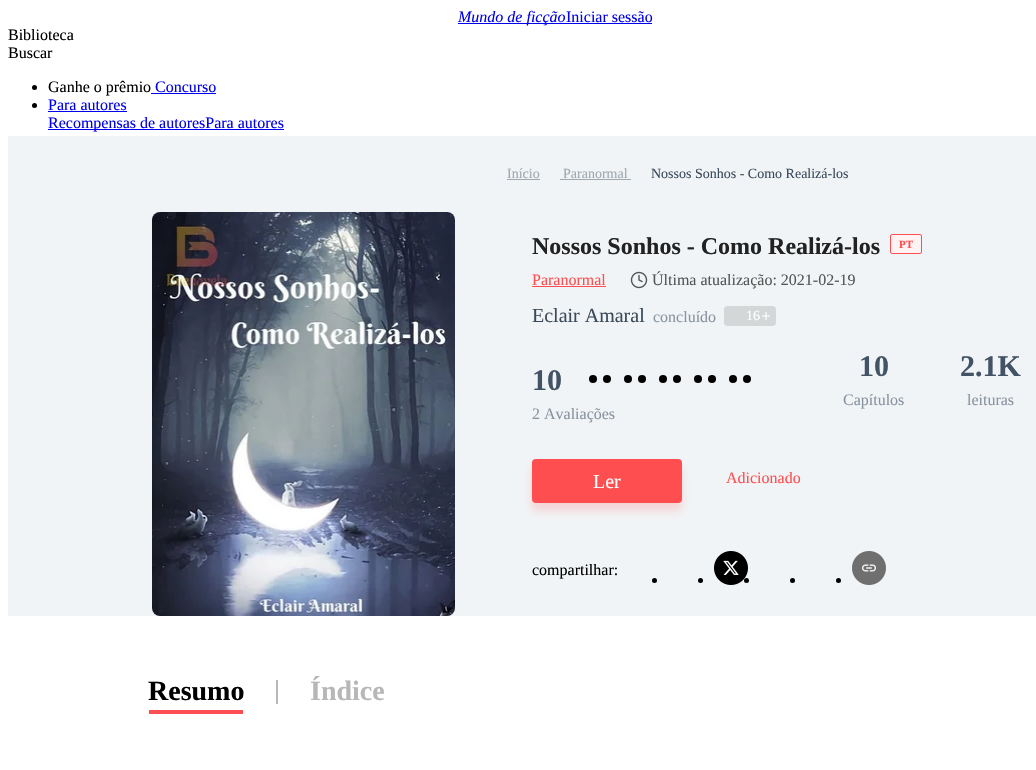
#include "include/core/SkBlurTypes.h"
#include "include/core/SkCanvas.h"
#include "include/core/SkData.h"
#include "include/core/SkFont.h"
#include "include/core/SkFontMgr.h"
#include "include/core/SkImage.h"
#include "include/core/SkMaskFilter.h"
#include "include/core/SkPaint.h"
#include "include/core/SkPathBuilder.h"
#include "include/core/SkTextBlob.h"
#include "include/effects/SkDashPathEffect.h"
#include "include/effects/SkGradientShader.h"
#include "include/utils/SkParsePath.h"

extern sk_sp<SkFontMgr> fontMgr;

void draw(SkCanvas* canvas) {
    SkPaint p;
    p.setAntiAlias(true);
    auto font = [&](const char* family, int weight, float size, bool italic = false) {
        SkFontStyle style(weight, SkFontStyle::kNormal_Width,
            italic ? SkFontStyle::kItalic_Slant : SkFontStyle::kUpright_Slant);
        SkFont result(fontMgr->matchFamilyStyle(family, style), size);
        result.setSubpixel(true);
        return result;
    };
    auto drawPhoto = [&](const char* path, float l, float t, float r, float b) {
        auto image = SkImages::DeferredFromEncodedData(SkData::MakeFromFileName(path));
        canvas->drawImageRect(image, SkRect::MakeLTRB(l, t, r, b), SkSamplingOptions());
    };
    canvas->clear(0xFFFFFFFF);
    p.setColor(0xFF0000EE);
    canvas->drawRect(SkRect::MakeLTRB(458, 23, 652, 24), p);
    auto font1 = font("Liberation Serif", 400, 16, true);
    canvas->drawString("Mundo de ficção", 458, 22, font1, p);
    auto font2 = font("Liberation Serif", 400, 16);
    canvas->drawString("Iniciar sessão", 566, 22, font2, p);
    p.setColor(0xFF000000);
    canvas->drawString("Biblioteca", 8, 40, font2, p);
    canvas->drawString("Buscar", 8, 58, font2, p);
    canvas->drawCircle(34.5f, 87.5f, 2.5f, p);
    canvas->drawString("Ganhe o prêmio", 48, 92, font2, p);
    p.setColor(0xFF0000EE);
    canvas->drawString("Concurso", 155, 92, font2, p);
    canvas->drawRect(SkRect::MakeLTRB(151, 93, 216, 94), p);
    p.setColor(0xFF000000);
    canvas->drawCircle(34.5f, 105.5f, 2.5f, p);
    p.setColor(0xFF0000EE);
    canvas->drawString("Para autores", 48, 110, font2, p);
    canvas->drawRect(SkRect::MakeLTRB(48, 111, 127, 112), p);
    canvas->drawRect(SkRect::MakeLTRB(48, 129, 284, 130), p);
    canvas->drawString("Recompensas de autoresPara autores", 48, 128, font2, p);
    p.setColor(0xFFF1F4F6);
    canvas->drawRect(SkRect::MakeLTRB(8, 136, 1036, 616), p);
    auto font3 = font("Liberation Serif", 400, 14);
    p.setColor(0xFF9FA8B0);
    canvas->drawString("Início", 507, 178, font3, p);
    canvas->drawRect(SkRect::MakeLTRB(507, 179, 540, 180), p);
    canvas->drawString("Paranormal", 563, 178, font3, p);
    canvas->drawRect(SkRect::MakeLTRB(560, 179, 631, 180), p);
    p.setColor(0xFF3A4A5A);
    canvas->drawString("Nossos Sonhos - Como Realizá-los", 651, 178, font3, p);
    drawPhoto("media/1.png", 152, 212, 455, 616);
    auto font4 = font("Liberation Serif", 700, 24);
    p.setColor(0xFF222222);
    canvas->drawString("Nossos Sonhos - Como Realizá-los", 532, 254, font4, p);
    p.setColor(0xFFFFF2F2);
    canvas->drawRoundRect(SkRect::MakeLTRB(890.5f, 234.5f, 921.5f, 253.5f), 1.5f, 1.5f, p);
    p.setStyle(SkPaint::kStroke_Style);
    p.setStrokeWidth(1);
    p.setColor(0xFFFF4E50);
    canvas->drawRoundRect(SkRect::MakeLTRB(890.5f, 234.5f, 921.5f, 253.5f), 1.5f, 1.5f, p);
    auto font5 = font("Liberation Serif", 700, 11);
    p.setStyle(SkPaint::kFill_Style);
    canvas->drawString("PT", 899, 248, font5, p);
    canvas->drawString("Paranormal", 532, 285, font2, p);
    canvas->drawRect(SkRect::MakeLTRB(532, 286, 606, 287), p);
    drawPhoto("media/2.png", 630, 271, 648, 289);
    p.setColor(0xFF555555);
    canvas->drawString("Última atualização: 2021-02-19", 652, 285, font2, p);
    auto font6 = font("Liberation Serif", 400, 20);
    p.setColor(0xFF3A4A5A);
    canvas->drawString("Eclair Amaral", 532, 322, font6, p);
    p.setColor(0xFF8993A0);
    canvas->drawString("concluído", 653, 322, font2, p);
    p.setColor(0xFFD4D7D8);
    canvas->drawRoundRect(SkRect::MakeLTRB(724, 306, 776, 326), 4, 4, p);
    p.setColor(0xFFFFFFFF);
    canvas->drawString("16", 746, 320, font3, p);
    drawPhoto("media/3.png", 762, 312, 770, 320);
    auto font7 = font("Liberation Serif", 700, 30);
    p.setColor(0xFF435366);
    canvas->drawString("10", 532, 390, font7, p);
    p.setColor(0xFF000000);
    canvas->drawCircle(593, 379, 4, p);
    canvas->drawCircle(607, 379, 4, p);
    canvas->drawCircle(628, 379, 4, p);
    canvas->drawCircle(642, 379, 4, p);
    canvas->drawCircle(663, 379, 4, p);
    canvas->drawCircle(677, 379, 4, p);
    canvas->drawCircle(698, 379, 4, p);
    canvas->drawCircle(712, 379, 4, p);
    canvas->drawCircle(733, 379, 4, p);
    canvas->drawCircle(747, 379, 4, p);
    p.setColor(0xFF8993A0);
    canvas->drawString("2 Avaliações", 532, 419, font2, p);
    p.setColor(0xFF435366);
    canvas->drawString("10", 859, 376, font7, p);
    p.setColor(0xFF8993A0);
    canvas->drawString("Capítulos", 843, 405, font2, p);
    p.setColor(0xFF435366);
    canvas->drawString("2.1K", 960, 376, font7, p);
    p.setColor(0xFF8993A0);
    canvas->drawString("leituras", 967, 405, font2, p);
    p.setColor(0x33FF4E50);
    p.setMaskFilter(SkMaskFilter::MakeBlur(kNormal_SkBlurStyle, 5));
    canvas->drawRoundRect(SkRect::MakeLTRB(532, 467, 682, 511), 4, 4, p);
    p.setMaskFilter(nullptr);
    p.setColor(0xFFFF4E50);
    canvas->drawRoundRect(SkRect::MakeLTRB(532, 459, 682, 503), 4, 4, p);
    p.setColor(0xFFFFFFFF);
    canvas->drawString("Ler", 593, 488, font6, p);
    p.setColor(0xFFFF4E50);
    canvas->drawString("Adicionado", 726, 483, font2, p);
    p.setColor(0xFF000000);
    canvas->drawString("compartilhar:", 532, 575, font2, p);
    canvas->drawCircle(654.5f, 580.5f, 2.5f, p);
    canvas->drawCircle(700.5f, 580.5f, 2.5f, p);
    drawPhoto("media/4.png", 714, 551, 748, 585);
    canvas->drawCircle(838.5f, 580.5f, 2.5f, p);
    drawPhoto("media/5.png", 852, 551, 886, 585);
    canvas->drawCircle(746.5f, 580.5f, 2.5f, p);
    canvas->drawCircle(792.5f, 580.5f, 2.5f, p);
    auto font8 = font("Liberation Serif", 700, 28);
    canvas->drawString("Resumo", 148, 700, font8, p);
    p.setColor(0xFFFF4E50);
    canvas->drawRect(SkRect::MakeLTRB(149, 710, 243, 714), p);
    p.setColor(0xFFB7B7B7);
    canvas->drawRect(SkRect::MakeLTRB(276, 680, 278, 704), p);
    canvas->drawString("Índice", 310, 700, font8, p);
}
